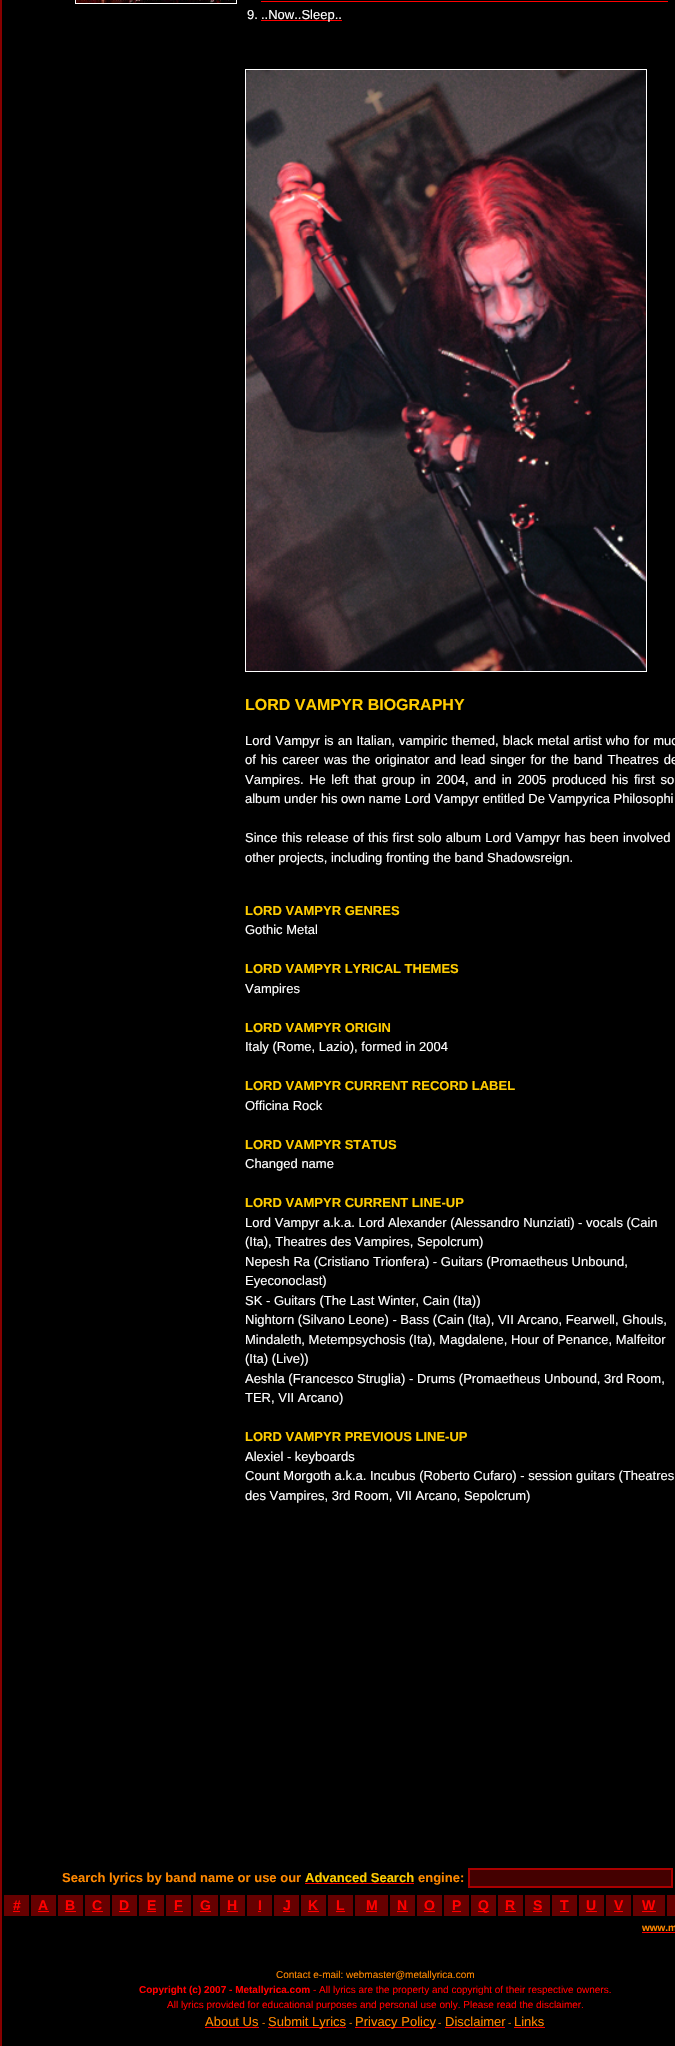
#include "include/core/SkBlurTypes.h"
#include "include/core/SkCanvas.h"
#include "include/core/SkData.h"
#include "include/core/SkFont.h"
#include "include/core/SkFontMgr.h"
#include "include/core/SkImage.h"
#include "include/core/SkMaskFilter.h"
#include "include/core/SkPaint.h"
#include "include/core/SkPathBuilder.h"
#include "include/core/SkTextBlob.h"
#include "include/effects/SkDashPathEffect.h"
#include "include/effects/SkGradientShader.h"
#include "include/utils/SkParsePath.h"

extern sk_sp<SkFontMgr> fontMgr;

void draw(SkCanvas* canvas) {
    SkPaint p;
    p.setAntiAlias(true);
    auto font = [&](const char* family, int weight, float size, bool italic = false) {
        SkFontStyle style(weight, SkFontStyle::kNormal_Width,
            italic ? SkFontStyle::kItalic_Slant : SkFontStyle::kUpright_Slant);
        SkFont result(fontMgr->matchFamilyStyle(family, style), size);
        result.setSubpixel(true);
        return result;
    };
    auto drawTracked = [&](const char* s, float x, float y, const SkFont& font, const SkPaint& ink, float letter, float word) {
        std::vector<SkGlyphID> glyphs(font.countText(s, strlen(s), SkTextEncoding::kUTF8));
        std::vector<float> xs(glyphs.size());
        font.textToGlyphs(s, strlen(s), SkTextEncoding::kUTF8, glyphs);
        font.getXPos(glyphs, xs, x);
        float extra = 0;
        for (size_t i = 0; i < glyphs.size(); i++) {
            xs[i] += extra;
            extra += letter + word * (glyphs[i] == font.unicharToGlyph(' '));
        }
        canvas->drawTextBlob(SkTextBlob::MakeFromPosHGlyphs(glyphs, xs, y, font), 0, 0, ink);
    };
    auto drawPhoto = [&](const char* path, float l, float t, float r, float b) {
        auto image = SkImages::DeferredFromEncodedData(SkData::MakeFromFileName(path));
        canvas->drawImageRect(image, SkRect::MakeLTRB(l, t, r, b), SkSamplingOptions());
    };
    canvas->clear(0xFF000000);
    p.setColor(0xFF880000);
    canvas->drawRect(SkRect::MakeLTRB(0, 0, 2, 2046), p);
    p.setStyle(SkPaint::kStroke_Style);
    p.setStrokeWidth(1);
    p.setColor(0xFFFFFFFF);
    canvas->drawRect(SkRect::MakeLTRB(75.5f, -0.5f, 236.5f, 3.5f), p);
    drawPhoto("media/1.png", 76, 0, 236, 3);
    auto font1 = font("Liberation Sans", 400, 13);
    p.setStyle(SkPaint::kFill_Style);
    canvas->drawString("9.", 247, 19, font1, p);
    p.setColor(0xFFFF0000);
    canvas->drawRect(SkRect::MakeLTRB(261, 20, 342, 21), p);
    p.setColor(0xFFFFFFFF);
    canvas->drawString("..Now..Sleep..", 261, 19, font1, p);
    p.setColor(0xFFFF0000);
    canvas->drawRect(SkRect::MakeLTRB(261, 1, 668, 2), p);
    p.setStyle(SkPaint::kStroke_Style);
    p.setColor(0xFFFFFFFF);
    canvas->drawRect(SkRect::MakeLTRB(245.5f, 69.5f, 646.5f, 671.5f), p);
    drawPhoto("media/2.png", 246, 70, 646, 671);
    auto font2 = font("Liberation Sans", 700, 16);
    p.setStyle(SkPaint::kFill_Style);
    p.setColor(0xFFFFCC00);
    canvas->drawString("LORD VAMPYR BIOGRAPHY", 245, 710, font2, p);
    p.setColor(0xFFFFFFFF);
    drawTracked("Lord Vampyr is an Italian, vampiric themed, black metal artist who for muc", 245, 745, font1, p, 0, 0.6f);
    drawTracked("of his career was the originator and lead singer for the band Theatres de", 245, 764, font1, p, 0, 1.3f);
    drawTracked("Vampires. He left that group in 2004, and in 2005 produced his first so", 245, 784, font1, p, 0, 2);
    canvas->drawString("album under his own name Lord Vampyr entitled De Vampyrica Philosophi", 245, 803, font1, p);
    drawTracked("Since this release of this first solo album Lord Vampyr has been involved", 245, 842, font1, p, 0, 0.6f);
    canvas->drawString("other projects, including fronting the band Shadowsreign.", 245, 862, font1, p);
    auto font3 = font("Liberation Sans", 700, 13);
    p.setColor(0xFFFFCC00);
    canvas->drawString("LORD VAMPYR GENRES", 245, 915, font3, p);
    p.setColor(0xFFFFFFFF);
    canvas->drawString("Gothic Metal", 245, 934, font1, p);
    p.setColor(0xFFFFCC00);
    canvas->drawString("LORD VAMPYR LYRICAL THEMES", 245, 973, font3, p);
    p.setColor(0xFFFFFFFF);
    canvas->drawString("Vampires", 245, 993, font1, p);
    p.setColor(0xFFFFCC00);
    canvas->drawString("LORD VAMPYR ORIGIN", 245, 1032, font3, p);
    p.setColor(0xFFFFFFFF);
    canvas->drawString("Italy (Rome, Lazio), formed in 2004", 245, 1051, font1, p);
    p.setColor(0xFFFFCC00);
    canvas->drawString("LORD VAMPYR CURRENT RECORD LABEL", 245, 1090, font3, p);
    p.setColor(0xFFFFFFFF);
    canvas->drawString("Officina Rock", 245, 1110, font1, p);
    p.setColor(0xFFFFCC00);
    canvas->drawString("LORD VAMPYR STATUS", 245, 1149, font3, p);
    p.setColor(0xFFFFFFFF);
    canvas->drawString("Changed name", 245, 1168, font1, p);
    p.setColor(0xFFFFCC00);
    canvas->drawString("LORD VAMPYR CURRENT LINE-UP", 245, 1207, font3, p);
    p.setColor(0xFFFFFFFF);
    {
        const struct { const char* s; float x, y; } items[] = {
            {"Lord Vampyr a.k.a. Lord Alexander (Alessandro Nunziati) - vocals (Cain", 245, 1227},
            {"(Ita), Theatres des Vampires, Sepolcrum)", 245, 1246},
            {"Nepesh Ra (Cristiano Trionfera) - Guitars (Promaetheus Unbound,", 245, 1266},
            {"Eyeconoclast)", 245, 1285},
            {"SK - Guitars (The Last Winter, Cain (Ita))", 245, 1305},
            {"Nightorn (Silvano Leone) - Bass (Cain (Ita), VII Arcano, Fearwell, Ghouls,", 245, 1324},
            {"Mindaleth, Metempsychosis (Ita), Magdalene, Hour of Penance, Malfeitor", 245, 1344},
            {"(Ita) (Live))", 245, 1363},
            {"Aeshla (Francesco Struglia) - Drums (Promaetheus Unbound, 3rd Room,", 245, 1383},
            {"TER, VII Arcano)", 245, 1402},
        };
        for (auto [s, x, y] : items) {
            canvas->drawString(s, x, y, font1, p);
        }
    }
    p.setColor(0xFFFFCC00);
    canvas->drawString("LORD VAMPYR PREVIOUS LINE-UP", 245, 1441, font3, p);
    p.setColor(0xFFFFFFFF);
    {
        const struct { const char* s; float x, y; } items[] = {
            {"Alexiel - keyboards", 245, 1461},
            {"Count Morgoth a.k.a. Incubus (Roberto Cufaro) - session guitars (Theatres", 245, 1480},
            {"des Vampires, 3rd Room, VII Arcano, Sepolcrum)", 245, 1500},
        };
        for (auto [s, x, y] : items) {
            canvas->drawString(s, x, y, font1, p);
        }
    }
    p.setColor(0xFFFF8800);
    canvas->drawString("Search lyrics by band name or use our", 62, 1882, font3, p);
    p.setColor(0xFFFFCC00);
    canvas->drawString("Advanced Search", 305, 1882, font3, p);
    p.setColor(0xFFFF0000);
    canvas->drawRect(SkRect::MakeLTRB(305, 1883, 414, 1884), p);
    p.setColor(0xFFFF8800);
    canvas->drawString("engine:", 418, 1882, font3, p);
    p.setColor(0xFF440000);
    canvas->drawRect(SkRect::MakeLTRB(469, 1869, 672, 1887), p);
    p.setStyle(SkPaint::kStroke_Style);
    p.setStrokeWidth(2);
    p.setColor(0xFFAA0000);
    canvas->drawRect(SkRect::MakeLTRB(469, 1869, 672, 1887), p);
    p.setStyle(SkPaint::kFill_Style);
    p.setColor(0xFF660000);
    canvas->drawRect(SkRect::MakeLTRB(4, 1895, 675, 1916), p);
    auto font4 = font("Liberation Sans", 700, 14);
    p.setColor(0xFFFF0000);
    canvas->drawString("#", 13, 1910, font4, p);
    canvas->drawRect(SkRect::MakeLTRB(13, 1911, 20, 1912), p);
    p.setColor(0xFF000000);
    canvas->drawRect(SkRect::MakeLTRB(29, 1895, 31, 1916), p);
    p.setColor(0xFFFF0000);
    canvas->drawString("A", 38, 1910, font4, p);
    canvas->drawRect(SkRect::MakeLTRB(38, 1911, 49, 1912), p);
    p.setColor(0xFF000000);
    canvas->drawRect(SkRect::MakeLTRB(56, 1895, 58, 1916), p);
    p.setColor(0xFFFF0000);
    canvas->drawString("B", 65, 1910, font4, p);
    canvas->drawRect(SkRect::MakeLTRB(65, 1911, 76, 1912), p);
    p.setColor(0xFF000000);
    canvas->drawRect(SkRect::MakeLTRB(83, 1895, 85, 1916), p);
    p.setColor(0xFFFF0000);
    canvas->drawString("C", 92, 1910, font4, p);
    canvas->drawRect(SkRect::MakeLTRB(92, 1911, 103, 1912), p);
    p.setColor(0xFF000000);
    canvas->drawRect(SkRect::MakeLTRB(110, 1895, 112, 1916), p);
    p.setColor(0xFFFF0000);
    canvas->drawString("D", 119, 1910, font4, p);
    canvas->drawRect(SkRect::MakeLTRB(119, 1911, 130, 1912), p);
    p.setColor(0xFF000000);
    canvas->drawRect(SkRect::MakeLTRB(137, 1895, 139, 1916), p);
    p.setColor(0xFFFF0000);
    canvas->drawString("E", 147, 1910, font4, p);
    canvas->drawRect(SkRect::MakeLTRB(147, 1911, 156, 1912), p);
    p.setColor(0xFF000000);
    canvas->drawRect(SkRect::MakeLTRB(164, 1895, 166, 1916), p);
    p.setColor(0xFFFF0000);
    canvas->drawString("F", 174, 1910, font4, p);
    canvas->drawRect(SkRect::MakeLTRB(174, 1911, 183, 1912), p);
    p.setColor(0xFF000000);
    canvas->drawRect(SkRect::MakeLTRB(191, 1895, 193, 1916), p);
    p.setColor(0xFFFF0000);
    canvas->drawString("G", 200, 1910, font4, p);
    canvas->drawRect(SkRect::MakeLTRB(200, 1911, 211, 1912), p);
    p.setColor(0xFF000000);
    canvas->drawRect(SkRect::MakeLTRB(218, 1895, 220, 1916), p);
    p.setColor(0xFFFF0000);
    canvas->drawString("H", 227, 1910, font4, p);
    canvas->drawRect(SkRect::MakeLTRB(227, 1911, 238, 1912), p);
    p.setColor(0xFF000000);
    canvas->drawRect(SkRect::MakeLTRB(245, 1895, 247, 1916), p);
    p.setColor(0xFFFF0000);
    canvas->drawString("I", 258, 1910, font4, p);
    canvas->drawRect(SkRect::MakeLTRB(258, 1911, 261, 1912), p);
    p.setColor(0xFF000000);
    canvas->drawRect(SkRect::MakeLTRB(272, 1895, 274, 1916), p);
    p.setColor(0xFFFF0000);
    canvas->drawString("J", 283, 1910, font4, p);
    canvas->drawRect(SkRect::MakeLTRB(283, 1911, 290, 1912), p);
    p.setColor(0xFF000000);
    canvas->drawRect(SkRect::MakeLTRB(299, 1895, 301, 1916), p);
    p.setColor(0xFFFF0000);
    canvas->drawString("K", 308, 1910, font4, p);
    canvas->drawRect(SkRect::MakeLTRB(308, 1911, 319, 1912), p);
    p.setColor(0xFF000000);
    canvas->drawRect(SkRect::MakeLTRB(326, 1895, 328, 1916), p);
    p.setColor(0xFFFF0000);
    canvas->drawString("L", 336, 1910, font4, p);
    canvas->drawRect(SkRect::MakeLTRB(336, 1911, 345, 1912), p);
    p.setColor(0xFF000000);
    canvas->drawRect(SkRect::MakeLTRB(353, 1895, 355, 1916), p);
    p.setColor(0xFFFF0000);
    canvas->drawString("M", 366, 1910, font4, p);
    canvas->drawRect(SkRect::MakeLTRB(366, 1911, 377, 1912), p);
    p.setColor(0xFF000000);
    canvas->drawRect(SkRect::MakeLTRB(388, 1895, 390, 1916), p);
    p.setColor(0xFFFF0000);
    canvas->drawString("N", 397, 1910, font4, p);
    canvas->drawRect(SkRect::MakeLTRB(397, 1911, 408, 1912), p);
    p.setColor(0xFF000000);
    canvas->drawRect(SkRect::MakeLTRB(415, 1895, 417, 1916), p);
    p.setColor(0xFFFF0000);
    canvas->drawString("O", 424, 1910, font4, p);
    canvas->drawRect(SkRect::MakeLTRB(424, 1911, 435, 1912), p);
    p.setColor(0xFF000000);
    canvas->drawRect(SkRect::MakeLTRB(442, 1895, 444, 1916), p);
    p.setColor(0xFFFF0000);
    canvas->drawString("P", 452, 1910, font4, p);
    {
        const struct { float l, t, r, b; SkColor color; } items[] = {
            {452, 1911, 461, 1912, 0xFFFF0000},
            {469, 1895, 471, 1916, 0xFF000000},
            {478, 1911, 489, 1912, 0xFFFF0000},
        };
        for (auto [l, t, r, b, color] : items) {
            p.setColor(color);
            canvas->drawRect(SkRect::MakeLTRB(l, t, r, b), p);
        }
    }
    canvas->drawString("Q", 478, 1910, font4, p);
    p.setColor(0xFF000000);
    canvas->drawRect(SkRect::MakeLTRB(496, 1895, 498, 1916), p);
    p.setColor(0xFFFF0000);
    canvas->drawString("R", 505, 1910, font4, p);
    canvas->drawRect(SkRect::MakeLTRB(505, 1911, 516, 1912), p);
    p.setColor(0xFF000000);
    canvas->drawRect(SkRect::MakeLTRB(523, 1895, 525, 1916), p);
    p.setColor(0xFFFF0000);
    canvas->drawString("S", 533, 1910, font4, p);
    canvas->drawRect(SkRect::MakeLTRB(533, 1911, 542, 1912), p);
    p.setColor(0xFF000000);
    canvas->drawRect(SkRect::MakeLTRB(550, 1895, 552, 1916), p);
    p.setColor(0xFFFF0000);
    canvas->drawString("T", 560, 1910, font4, p);
    canvas->drawRect(SkRect::MakeLTRB(560, 1911, 569, 1912), p);
    p.setColor(0xFF000000);
    canvas->drawRect(SkRect::MakeLTRB(577, 1895, 579, 1916), p);
    p.setColor(0xFFFF0000);
    canvas->drawString("U", 586, 1910, font4, p);
    canvas->drawRect(SkRect::MakeLTRB(586, 1911, 597, 1912), p);
    p.setColor(0xFF000000);
    canvas->drawRect(SkRect::MakeLTRB(604, 1895, 606, 1916), p);
    p.setColor(0xFFFF0000);
    canvas->drawString("V", 614, 1910, font4, p);
    canvas->drawRect(SkRect::MakeLTRB(614, 1911, 623, 1912), p);
    p.setColor(0xFF000000);
    canvas->drawRect(SkRect::MakeLTRB(631, 1895, 633, 1916), p);
    p.setColor(0xFFFF0000);
    canvas->drawString("W", 642, 1910, font4, p);
    canvas->drawRect(SkRect::MakeLTRB(642, 1911, 656, 1912), p);
    p.setColor(0xFF000000);
    canvas->drawRect(SkRect::MakeLTRB(665, 1895, 667, 1916), p);
    auto font5 = font("Liberation Sans", 700, 10);
    p.setColor(0xFFFF8800);
    canvas->drawString("www.m", 642, 1931, font5, p);
    p.setColor(0xFFFF0000);
    canvas->drawRect(SkRect::MakeLTRB(642, 1932, 675, 1933), p);
    auto font6 = font("Liberation Sans", 400, 10);
    p.setColor(0xFFFF8800);
    canvas->drawString("Contact e-mail: webmaster@metallyrica.com", 276, 1978, font6, p);
    p.setColor(0xFFFF0000);
    canvas->drawString("Copyright (c) 2007 - Metallyrica.com", 139, 1993, font5, p);
    canvas->drawString("- All lyrics are the property and copyright of their respective owners.", 313, 1993, font6, p);
    canvas->drawString("All lyrics provided for educational purposes and personal use only. Please read the disclaimer.", 167, 2008, font6, p);
    p.setColor(0xFFFF8800);
    canvas->drawString("About Us", 205, 2026, font1, p);
    p.setColor(0xFFFF0000);
    canvas->drawRect(SkRect::MakeLTRB(205, 2027, 259, 2028), p);
    p.setColor(0xFFFF8800);
    canvas->drawString("-", 262, 2026, font6, p);
    p.setColor(0xFFFF0000);
    canvas->drawRect(SkRect::MakeLTRB(268, 2027, 346, 2028), p);
    p.setColor(0xFFFF8800);
    canvas->drawString("Submit Lyrics", 268, 2026, font1, p);
    canvas->drawString("-", 349, 2026, font6, p);
    p.setColor(0xFFFF0000);
    canvas->drawRect(SkRect::MakeLTRB(355, 2027, 436, 2028), p);
    p.setColor(0xFFFF8800);
    canvas->drawString("Privacy Policy", 355, 2026, font1, p);
    canvas->drawString("-", 438, 2026, font6, p);
    p.setColor(0xFFFF0000);
    canvas->drawRect(SkRect::MakeLTRB(445, 2027, 505, 2028), p);
    p.setColor(0xFFFF8800);
    canvas->drawString("Disclaimer", 445, 2026, font1, p);
    canvas->drawString("-", 508, 2026, font6, p);
    p.setColor(0xFFFF0000);
    canvas->drawRect(SkRect::MakeLTRB(514, 2027, 545, 2028), p);
    p.setColor(0xFFFF8800);
    canvas->drawString("Links", 514, 2026, font1, p);
}
